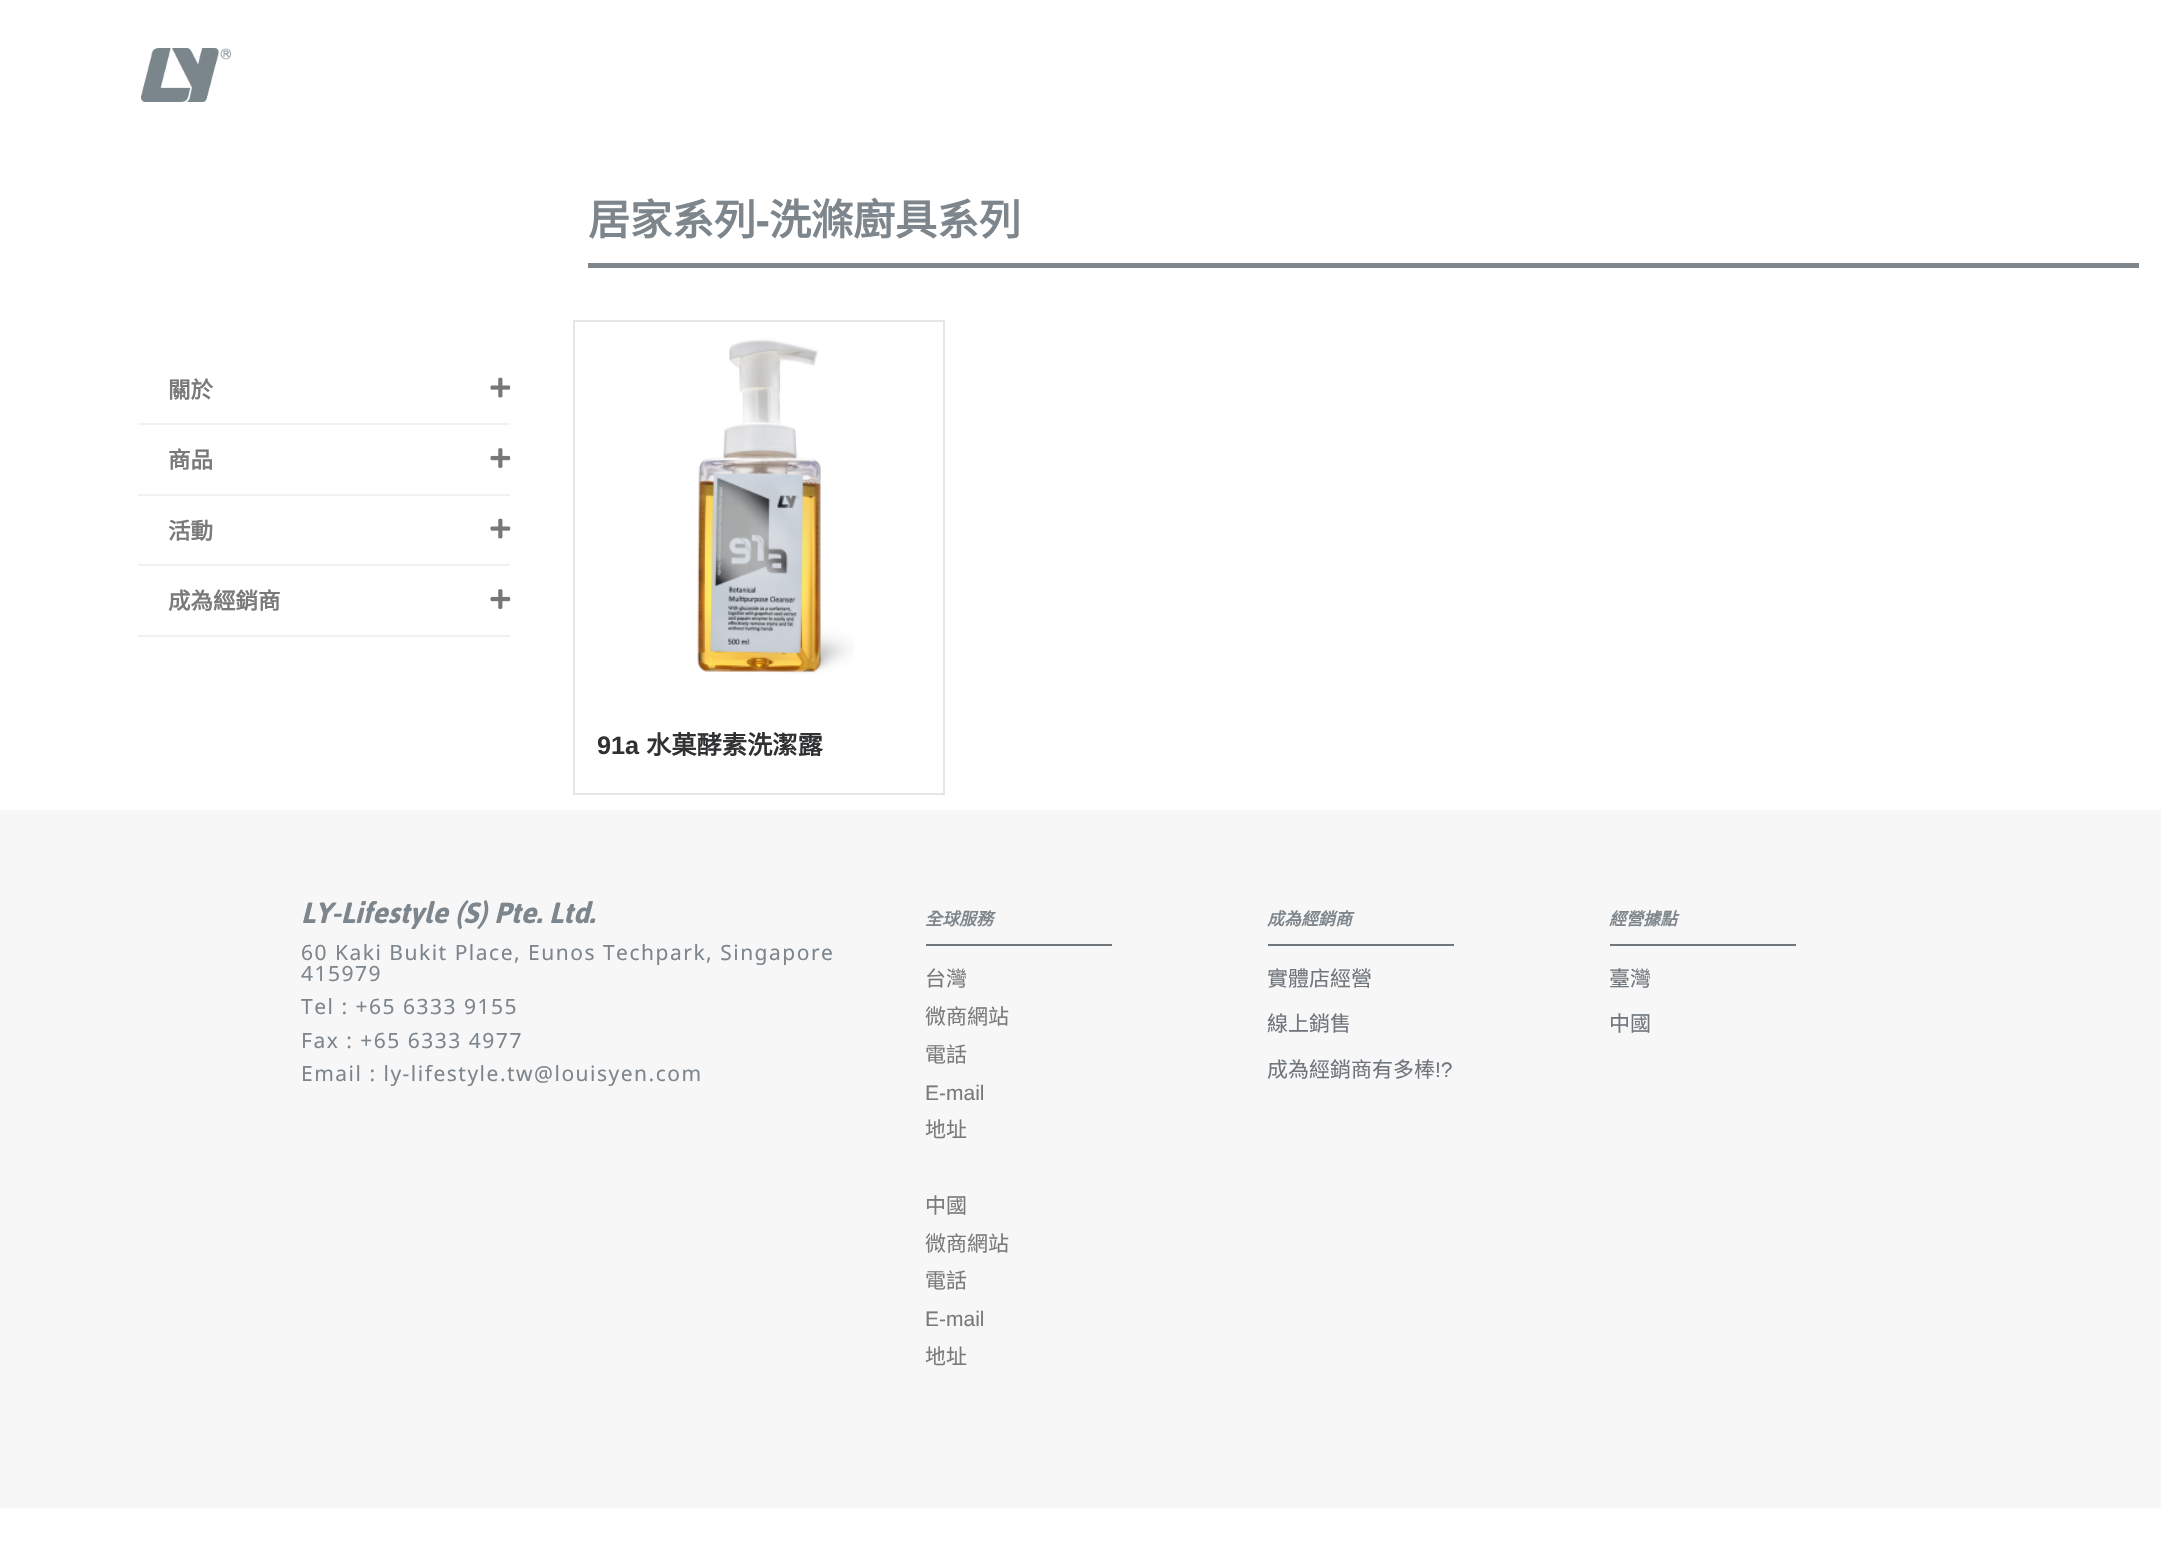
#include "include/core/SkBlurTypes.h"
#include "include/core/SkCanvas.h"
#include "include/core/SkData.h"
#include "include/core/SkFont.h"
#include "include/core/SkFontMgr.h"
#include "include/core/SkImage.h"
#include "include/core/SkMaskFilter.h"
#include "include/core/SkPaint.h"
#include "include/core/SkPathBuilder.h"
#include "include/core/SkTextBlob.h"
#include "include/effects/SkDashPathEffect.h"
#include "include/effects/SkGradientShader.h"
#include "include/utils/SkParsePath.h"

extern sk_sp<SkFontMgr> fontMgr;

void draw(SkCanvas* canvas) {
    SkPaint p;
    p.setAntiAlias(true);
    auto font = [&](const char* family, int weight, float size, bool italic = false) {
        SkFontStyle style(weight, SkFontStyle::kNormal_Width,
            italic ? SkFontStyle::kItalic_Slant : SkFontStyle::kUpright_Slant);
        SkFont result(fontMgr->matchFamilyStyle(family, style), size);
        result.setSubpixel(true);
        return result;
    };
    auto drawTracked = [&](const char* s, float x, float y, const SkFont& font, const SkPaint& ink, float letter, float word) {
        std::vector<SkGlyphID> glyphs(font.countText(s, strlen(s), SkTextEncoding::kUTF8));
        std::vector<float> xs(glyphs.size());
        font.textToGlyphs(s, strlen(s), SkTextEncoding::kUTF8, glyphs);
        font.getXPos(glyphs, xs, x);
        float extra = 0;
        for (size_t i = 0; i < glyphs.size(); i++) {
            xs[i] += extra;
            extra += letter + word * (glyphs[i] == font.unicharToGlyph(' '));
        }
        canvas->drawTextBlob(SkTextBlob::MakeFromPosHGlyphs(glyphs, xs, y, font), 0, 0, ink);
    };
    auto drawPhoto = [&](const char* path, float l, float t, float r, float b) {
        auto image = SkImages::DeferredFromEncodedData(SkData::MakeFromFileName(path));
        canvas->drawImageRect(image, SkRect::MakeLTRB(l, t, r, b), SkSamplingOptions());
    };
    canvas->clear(0xFFFFFFFF);
    drawPhoto("media/1.png", 141, 48, 231, 102);
    p.setColor(0xFFF1F1F1);
    canvas->drawRect(SkRect::MakeLTRB(138, 423, 510, 425), p);
    auto font1 = font("Noto Sans CJK TC", 700, 22.5f);
    p.setColor(0xFF7A7A7A);
    canvas->drawString("關於", 168, 398, font1, p);
    drawPhoto("media/2.png", 490, 377, 511, 398);
    p.setColor(0xFFF1F1F1);
    canvas->drawRect(SkRect::MakeLTRB(138, 494, 510, 496), p);
    p.setColor(0xFF7A7A7A);
    canvas->drawString("商品", 168, 468, font1, p);
    drawPhoto("media/3.png", 490, 448, 511, 468);
    p.setColor(0xFFF1F1F1);
    canvas->drawRect(SkRect::MakeLTRB(138, 564, 510, 566), p);
    p.setColor(0xFF7A7A7A);
    canvas->drawString("活動", 168, 539, font1, p);
    drawPhoto("media/2.png", 490, 518, 511, 539);
    p.setColor(0xFFF1F1F1);
    canvas->drawRect(SkRect::MakeLTRB(138, 635, 510, 637), p);
    p.setColor(0xFF7A7A7A);
    canvas->drawString("成為經銷商", 168, 609, font1, p);
    drawPhoto("media/3.png", 490, 589, 511, 609);
    auto font2 = font("Noto Sans CJK TC", 700, 42);
    p.setColor(0xFF7D868C);
    canvas->drawString("居家系列", 588, 235, font2, p);
    auto font3 = font("Noto Sans", 700, 42);
    canvas->drawString("-", 756, 235, font3, p);
    canvas->drawString("洗滌廚具系列", 769, 235, font2, p);
    canvas->drawRect(SkRect::MakeLTRB(588, 263, 2139, 268), p);
    p.setStyle(SkPaint::kStroke_Style);
    p.setStrokeWidth(2);
    p.setColor(0xFFE6E6E6);
    canvas->drawRect(SkRect::MakeLTRB(574, 321, 944, 794), p);
    drawPhoto("media/4.png", 697, 338, 854, 674);
    auto font4 = font("Liberation Sans", 700, 25.25f);
    p.setStyle(SkPaint::kFill_Style);
    p.setColor(0xFF303133);
    canvas->drawString("91a", 597, 754, font4, p);
    auto font5 = font("Noto Sans CJK TC", 700, 25.25f);
    canvas->drawString("水菓酵素洗潔露", 646, 754, font5, p);
    p.setColor(0xFFF7F7F8);
    canvas->drawRect(SkRect::MakeLTRB(0, 810, 2161, 1508), p);
    auto font6 = font("Jaldi", 700, 33.5f, true);
    p.setColor(0xFF7D868C);
    canvas->drawString("LY-Lifestyle (S) Pte. Ltd.", 301, 923, font6, p);
    auto font7 = font("Noto Sans", 400, 21);
    {
        const struct { const char* s; float x, y; } items[] = {
            {"60 Kaki Bukit Place, Eunos Techpark, Singapore", 301, 960},
            {"415979", 301, 981},
            {"Tel : +65 6333 9155", 301, 1014},
            {"Fax : +65 6333 4977", 301, 1048},
            {"Email : ly-lifestyle.tw@louisyen.com", 301, 1081},
        };
        for (auto [s, x, y] : items) {
            drawTracked(s, x, y, font7, p, 1.5f, 0);
        }
    }
    auto font8 = font("Noto Sans CJK TC", 700, 17, true);
    canvas->drawString("全球服務", 925, 925, font8, p);
    p.setColor(0xFF6F767C);
    canvas->drawRect(SkRect::MakeLTRB(926, 944, 1112, 946), p);
    auto font9 = font("Noto Sans CJK TC", 400, 21);
    p.setColor(0xFF7A7A7A);
    {
        const struct { const char* s; float x, y; } items[] = {
            {"台灣", 925, 986},
            {"微商網站", 925, 1024},
            {"電話", 925, 1062},
        };
        for (auto [s, x, y] : items) {
            canvas->drawString(s, x, y, font9, p);
        }
    }
    auto font10 = font("Liberation Sans", 400, 21);
    canvas->drawString("E-mail", 925, 1100, font10, p);
    {
        const struct { const char* s; float x, y; } items[] = {
            {"地址", 925, 1137},
            {"中國", 925, 1213},
            {"微商網站", 925, 1251},
            {"電話", 925, 1288},
        };
        for (auto [s, x, y] : items) {
            canvas->drawString(s, x, y, font9, p);
        }
    }
    canvas->drawString("E-mail", 925, 1326, font10, p);
    canvas->drawString("地址", 925, 1364, font9, p);
    p.setColor(0xFF7D868C);
    canvas->drawString("成為經銷商", 1267, 925, font8, p);
    p.setColor(0xFF6F767C);
    canvas->drawRect(SkRect::MakeLTRB(1268, 944, 1454, 946), p);
    {
        const struct { const char* s; float x, y; } items[] = {
            {"實體店經營", 1267, 986},
            {"線上銷售", 1267, 1031},
            {"成為經銷商有多棒", 1267, 1077},
        };
        for (auto [s, x, y] : items) {
            canvas->drawString(s, x, y, font9, p);
        }
    }
    canvas->drawString("!?", 1435, 1077, font10, p);
    p.setColor(0xFF7D868C);
    canvas->drawString("經營據點", 1609, 925, font8, p);
    p.setColor(0xFF6F767C);
    canvas->drawRect(SkRect::MakeLTRB(1610, 944, 1796, 946), p);
    canvas->drawString("臺灣", 1609, 986, font9, p);
    canvas->drawString("中國", 1609, 1031, font9, p);
}
